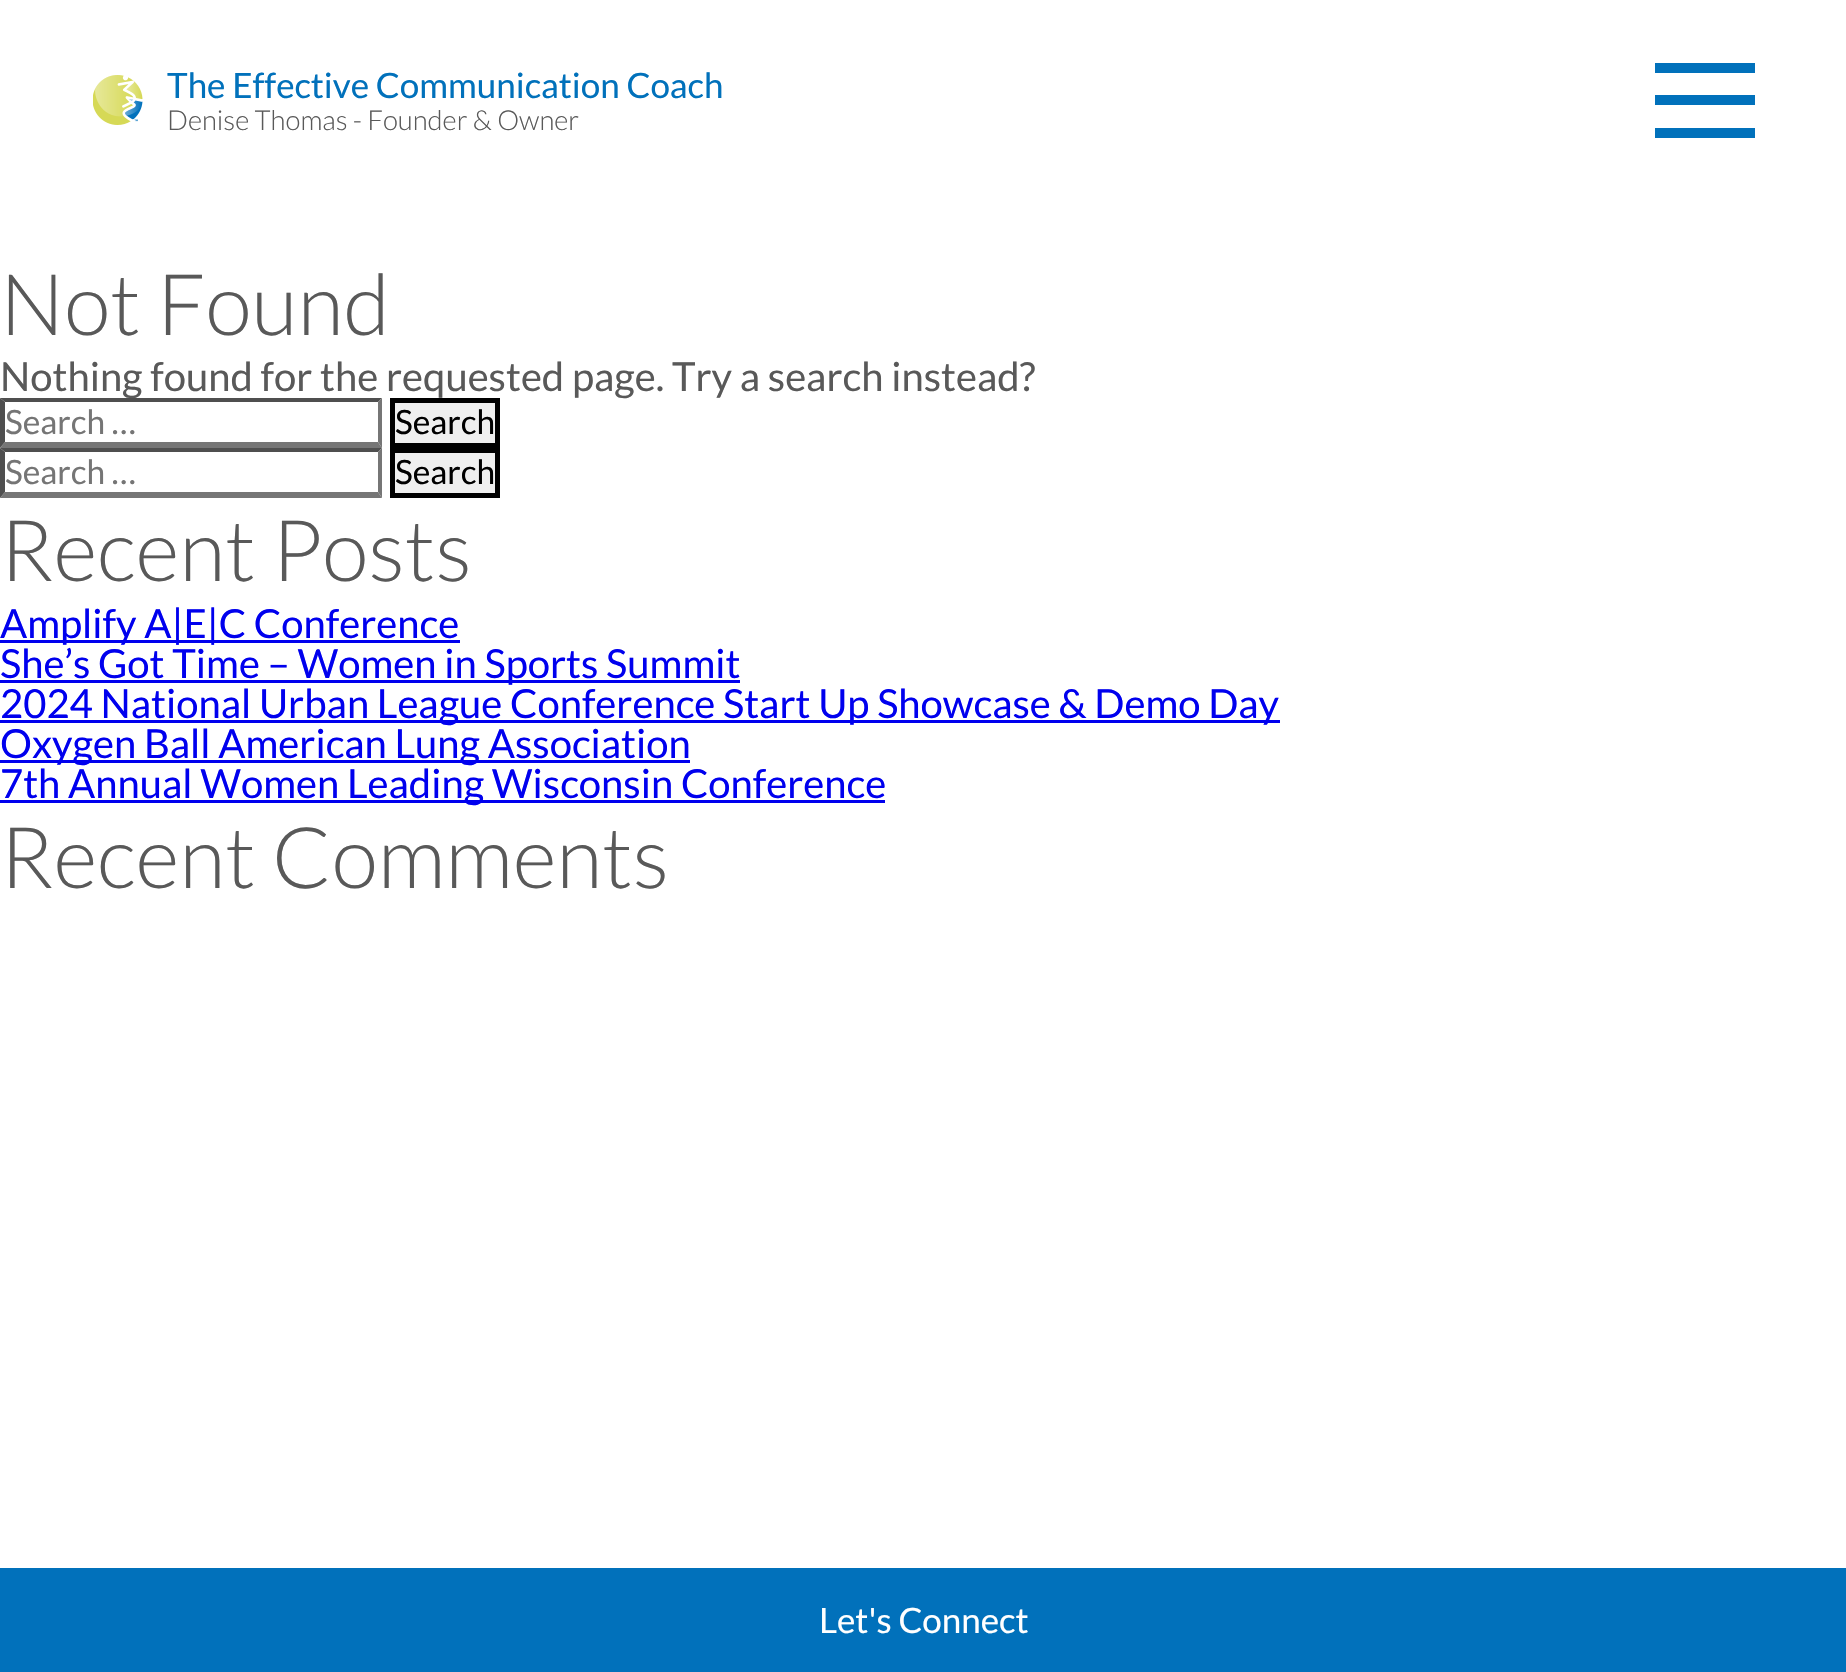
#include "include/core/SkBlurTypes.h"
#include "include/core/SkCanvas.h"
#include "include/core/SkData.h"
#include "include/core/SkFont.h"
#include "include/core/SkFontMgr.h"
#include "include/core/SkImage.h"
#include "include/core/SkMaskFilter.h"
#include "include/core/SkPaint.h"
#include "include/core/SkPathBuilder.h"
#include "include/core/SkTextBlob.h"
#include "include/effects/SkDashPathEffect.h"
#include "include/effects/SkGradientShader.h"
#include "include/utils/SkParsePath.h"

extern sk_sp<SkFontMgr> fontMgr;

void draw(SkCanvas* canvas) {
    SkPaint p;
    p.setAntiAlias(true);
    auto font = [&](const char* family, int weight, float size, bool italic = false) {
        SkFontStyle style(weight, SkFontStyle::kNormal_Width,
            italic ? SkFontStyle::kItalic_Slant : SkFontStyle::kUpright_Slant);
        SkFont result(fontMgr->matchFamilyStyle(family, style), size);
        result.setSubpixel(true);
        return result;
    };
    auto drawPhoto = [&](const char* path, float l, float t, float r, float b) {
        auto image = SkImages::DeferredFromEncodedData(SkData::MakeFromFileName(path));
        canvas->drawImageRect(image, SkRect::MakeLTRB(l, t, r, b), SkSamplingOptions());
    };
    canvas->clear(0xFFFFFFFF);
    drawPhoto("media/1.png", 93, 75, 143, 125);
    auto font1 = font("Lato", 400, 35);
    p.setColor(0xFF0171BB);
    canvas->drawString("The Effective Communication Coach", 167, 98, font1, p);
    auto font2 = font("Lato", 300, 27.5f);
    p.setColor(0xFF595959);
    canvas->drawString("Denise Thomas - Founder & Owner", 167, 130, font2, p);
    {
        const struct { float l, t, r, b; SkColor color; } items[] = {
            {1655, 63, 1755, 73, 0xFF0171BB},
            {1655, 128, 1755, 138, 0xFF0171BB},
            {1655, 95, 1755, 105, 0xFF0171BB},
            {0, 1568, 1846, 1672, 0xFF0171BB},
        };
        for (auto [l, t, r, b, color] : items) {
            p.setColor(color);
            canvas->drawRect(SkRect::MakeLTRB(l, t, r, b), p);
        }
    }
    p.setColor(0xFFFFFFFF);
    canvas->drawString("Let's Connect", 819, 1633, font1, p);
    auto font3 = font("Lato", 300, 85);
    p.setColor(0xFF595959);
    canvas->drawString("Not Found", 0, 335, font3, p);
    auto font4 = font("Lato", 400, 40);
    canvas->drawString("Nothing found for the requested page. Try a search instead?", 0, 391, font4, p);
    p.setColor(0xFFFFFFFF);
    canvas->drawRect(SkRect::MakeLTRB(129, 398, 135, 399), p);
    p.setColor(0xFF4F4F4F);
    canvas->drawPath(SkPathBuilder().moveTo(0, 398).lineTo(382, 398).lineTo(378, 402).lineTo(5, 402).close().detach(), p);
    p.setColor(0xFF767676);
    canvas->drawPath(SkPathBuilder().moveTo(382, 398).lineTo(382, 448).lineTo(378, 442).lineTo(378, 402).close().detach(), p);
    canvas->drawPath(SkPathBuilder().moveTo(382, 448).lineTo(0, 448).lineTo(5, 442).lineTo(378, 442).close().detach(), p);
    p.setColor(0xFF4F4F4F);
    canvas->drawPath(SkPathBuilder().moveTo(0, 448).lineTo(0, 398).lineTo(5, 402).lineTo(5, 442).close().detach(), p);
    auto font5 = font("Lato", 400, 33.5f);
    p.setColor(0xFF757575);
    canvas->drawString("Search …", 5, 434, font5, p);
    p.setColor(0xFFEFEFEF);
    canvas->drawRect(SkRect::MakeLTRB(392.5f, 400.5f, 497.5f, 445.5f), p);
    p.setStyle(SkPaint::kStroke_Style);
    p.setStrokeWidth(5);
    p.setColor(0xFF000000);
    canvas->drawRect(SkRect::MakeLTRB(392.5f, 400.5f, 497.5f, 445.5f), p);
    p.setStyle(SkPaint::kFill_Style);
    canvas->drawString("Search", 395, 434, font5, p);
    p.setColor(0xFF4F4F4F);
    canvas->drawPath(SkPathBuilder().moveTo(0, 448).lineTo(382, 448).lineTo(378, 452).lineTo(5, 452).close().detach(), p);
    p.setColor(0xFF767676);
    canvas->drawPath(SkPathBuilder().moveTo(382, 448).lineTo(382, 498).lineTo(378, 492).lineTo(378, 452).close().detach(), p);
    canvas->drawPath(SkPathBuilder().moveTo(382, 498).lineTo(0, 498).lineTo(5, 492).lineTo(378, 492).close().detach(), p);
    p.setColor(0xFF4F4F4F);
    canvas->drawPath(SkPathBuilder().moveTo(0, 498).lineTo(0, 448).lineTo(5, 452).lineTo(5, 492).close().detach(), p);
    p.setColor(0xFF757575);
    canvas->drawString("Search …", 5, 484, font5, p);
    p.setColor(0xFFEFEFEF);
    canvas->drawRect(SkRect::MakeLTRB(392.5f, 450.5f, 497.5f, 495.5f), p);
    p.setStyle(SkPaint::kStroke_Style);
    p.setColor(0xFF000000);
    canvas->drawRect(SkRect::MakeLTRB(392.5f, 450.5f, 497.5f, 495.5f), p);
    p.setStyle(SkPaint::kFill_Style);
    canvas->drawString("Search", 395, 484, font5, p);
    p.setColor(0xFF595959);
    canvas->drawString("Recent Posts", 0, 581, font3, p);
    p.setColor(0xFF0000EE);
    canvas->drawRect(SkRect::MakeLTRB(0, 640, 460, 643), p);
    canvas->drawString("Amplify A|E|C Conference", 0, 638, font4, p);
    canvas->drawRect(SkRect::MakeLTRB(0, 680, 740, 683), p);
    canvas->drawString("She’s Got Time – Women in Sports Summit", 0, 678, font4, p);
    canvas->drawRect(SkRect::MakeLTRB(0, 720, 1280, 723), p);
    canvas->drawString("2024 National Urban League Conference Start Up Showcase & Demo Day", 0, 718, font4, p);
    canvas->drawRect(SkRect::MakeLTRB(0, 760, 690, 763), p);
    canvas->drawString("Oxygen Ball American Lung Association", 0, 758, font4, p);
    canvas->drawRect(SkRect::MakeLTRB(0, 800, 885, 803), p);
    canvas->drawString("7th Annual Women Leading Wisconsin Conference", 0, 798, font4, p);
    p.setColor(0xFF595959);
    canvas->drawString("Recent Comments", 0, 888, font3, p);
}
